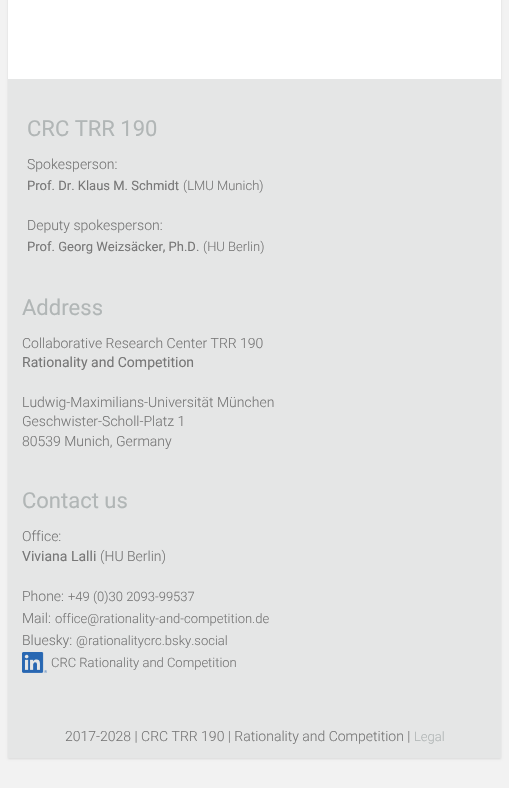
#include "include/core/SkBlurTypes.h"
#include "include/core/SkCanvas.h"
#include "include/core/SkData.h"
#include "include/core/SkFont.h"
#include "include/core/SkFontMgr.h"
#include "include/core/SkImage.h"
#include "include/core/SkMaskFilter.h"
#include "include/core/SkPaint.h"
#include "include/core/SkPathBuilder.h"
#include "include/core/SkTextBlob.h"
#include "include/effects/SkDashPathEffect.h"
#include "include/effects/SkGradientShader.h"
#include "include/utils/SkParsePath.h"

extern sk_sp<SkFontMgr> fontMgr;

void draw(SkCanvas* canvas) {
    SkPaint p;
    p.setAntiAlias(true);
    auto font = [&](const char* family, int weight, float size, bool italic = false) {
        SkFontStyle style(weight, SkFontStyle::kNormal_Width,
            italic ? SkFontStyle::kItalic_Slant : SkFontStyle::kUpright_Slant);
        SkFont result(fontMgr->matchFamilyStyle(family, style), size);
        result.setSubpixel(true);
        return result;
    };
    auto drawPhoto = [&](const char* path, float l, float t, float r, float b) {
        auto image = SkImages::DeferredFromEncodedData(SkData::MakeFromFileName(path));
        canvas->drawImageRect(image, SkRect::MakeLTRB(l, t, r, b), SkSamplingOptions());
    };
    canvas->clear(0xFFF2F2F2);
    p.setColor(0x1A000000);
    p.setMaskFilter(SkMaskFilter::MakeBlur(kNormal_SkBlurStyle, 1));
    canvas->drawRect(SkRect::MakeLTRB(8, -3, 501, 759), p);
    p.setMaskFilter(nullptr);
    p.setColor(0xFFFFFFFF);
    canvas->drawRect(SkRect::MakeLTRB(8, 0, 501, 79), p);
    p.setColor(0xFFE5E6E6);
    canvas->drawRect(SkRect::MakeLTRB(8, 79, 501, 758), p);
    auto font1 = font("Roboto", 400, 22);
    p.setColor(0xFFB1B6B6);
    canvas->drawString("CRC TRR 190", 27, 136, font1, p);
    auto font2 = font("Roboto", 300, 14);
    p.setColor(0xFF777777);
    canvas->drawString("Spokesperson:", 27, 169, font2, p);
    auto font3 = font("Roboto", 400, 13);
    canvas->drawString("Prof. Dr. Klaus M. Schmidt", 27, 190, font3, p);
    auto font4 = font("Roboto", 300, 13);
    canvas->drawString("(LMU Munich)", 183, 190, font4, p);
    canvas->drawString("Deputy spokesperson:", 27, 230, font2, p);
    canvas->drawString("Prof. Georg Weizsäcker, Ph.D.", 27, 251, font3, p);
    canvas->drawString("(HU Berlin)", 203, 251, font4, p);
    p.setColor(0xFFB1B6B6);
    canvas->drawString("Address", 22, 315, font1, p);
    p.setColor(0xFF777777);
    canvas->drawString("Collaborative Research Center TRR 190", 22, 348, font2, p);
    auto font5 = font("Roboto", 400, 14);
    canvas->drawString("Rationality and Competition", 22, 367, font5, p);
    {
        const struct { const char* s; float x, y; } items[] = {
            {"Ludwig-Maximilians-Universität München", 22, 407},
            {"Geschwister-Scholl-Platz 1", 22, 426},
            {"80539 Munich, Germany", 22, 446},
        };
        for (auto [s, x, y] : items) {
            canvas->drawString(s, x, y, font2, p);
        }
    }
    p.setColor(0xFFB1B6B6);
    canvas->drawString("Contact us", 22, 508, font1, p);
    p.setColor(0xFF777777);
    canvas->drawString("Office:", 22, 541, font2, p);
    canvas->drawString("Viviana Lalli", 22, 561, font5, p);
    canvas->drawString("(HU Berlin)", 100, 561, font2, p);
    canvas->drawString("Phone:", 22, 601, font2, p);
    canvas->drawString("+49 (0)30 2093-99537", 68, 601, font4, p);
    canvas->drawString("Mail:", 22, 623, font2, p);
    canvas->drawString("office@rationality-and-competition.de", 55, 623, font4, p);
    canvas->drawString("Bluesky:", 22, 645, font2, p);
    canvas->drawString("@rationalitycrc.bsky.social", 76, 645, font4, p);
    drawPhoto("media/1.png", 22, 652, 47, 673);
    canvas->drawString("CRC Rationality and Competition", 51, 667, font4, p);
    canvas->drawString("2017-2028 | CRC TRR 190 | Rationality and Competition |", 65, 741, font2, p);
    p.setColor(0xFFB1B6B6);
    canvas->drawString("Legal", 414, 741, font4, p);
}
